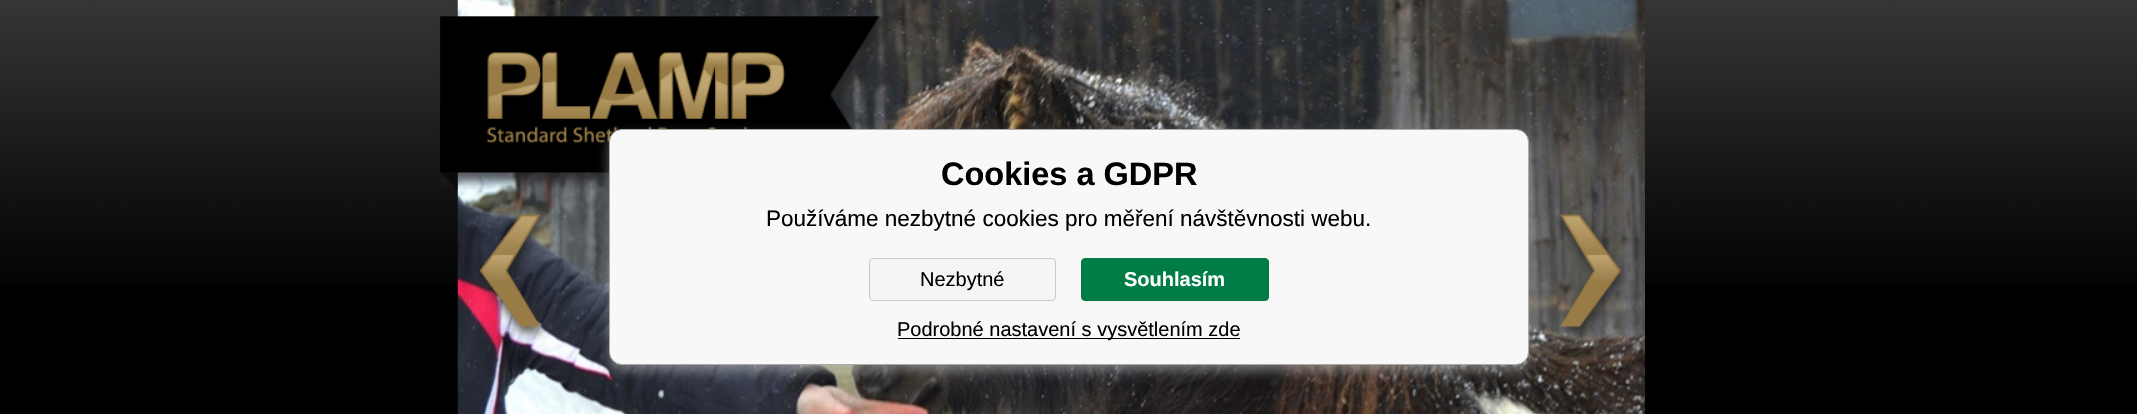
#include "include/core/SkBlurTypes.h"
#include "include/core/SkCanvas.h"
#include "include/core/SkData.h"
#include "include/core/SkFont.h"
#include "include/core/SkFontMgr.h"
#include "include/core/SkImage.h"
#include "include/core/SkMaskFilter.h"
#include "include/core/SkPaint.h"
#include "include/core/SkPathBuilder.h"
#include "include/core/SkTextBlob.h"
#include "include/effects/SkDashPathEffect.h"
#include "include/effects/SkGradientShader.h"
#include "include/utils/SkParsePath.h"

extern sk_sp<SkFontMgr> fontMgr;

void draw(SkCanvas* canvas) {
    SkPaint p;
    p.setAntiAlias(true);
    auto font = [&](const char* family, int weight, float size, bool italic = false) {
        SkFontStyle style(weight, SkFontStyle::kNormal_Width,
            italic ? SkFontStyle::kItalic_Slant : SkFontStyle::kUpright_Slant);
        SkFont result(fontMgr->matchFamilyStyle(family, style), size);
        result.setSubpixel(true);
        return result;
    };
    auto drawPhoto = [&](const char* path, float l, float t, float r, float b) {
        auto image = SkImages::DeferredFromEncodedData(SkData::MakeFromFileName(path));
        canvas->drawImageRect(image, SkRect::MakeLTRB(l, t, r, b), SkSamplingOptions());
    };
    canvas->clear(0xFF000000);
    drawPhoto("media/1.png", 0, 0, 2137, 285);
    drawPhoto("media/2.png", 457, 0, 1645, 414);
    drawPhoto("media/3.png", 478, 211, 548, 341);
    drawPhoto("media/4.png", 1556, 212, 1628, 340);
    drawPhoto("media/5.png", 439, 16, 888, 190);
    p.setColor(0x80C8C8C8);
    p.setMaskFilter(SkMaskFilter::MakeBlur(kNormal_SkBlurStyle, 6));
    canvas->drawRoundRect(SkRect::MakeLTRB(609, 135, 1529, 371), 13, 13, p);
    p.setMaskFilter(nullptr);
    p.setColor(0xFFF8F8F8);
    canvas->drawRoundRect(SkRect::MakeLTRB(609.5f, 129.5f, 1528.5f, 364.5f), 12.5f, 12.5f, p);
    p.setStyle(SkPaint::kStroke_Style);
    p.setStrokeWidth(1);
    p.setColor(0xFFAAAAAA);
    canvas->drawRoundRect(SkRect::MakeLTRB(609.5f, 129.5f, 1528.5f, 364.5f), 12.5f, 12.5f, p);
    auto font1 = font("Liberation Sans", 700, 32.5f);
    p.setStyle(SkPaint::kFill_Style);
    p.setColor(0xFF000000);
    canvas->drawString("Cookies a GDPR", 941, 185, font1, p);
    auto font2 = font("Liberation Sans", 400, 22.5f);
    canvas->drawString("Používáme nezbytné cookies pro měření návštěvnosti webu.", 766, 226, font2, p);
    p.setColor(0xFFF5F5F5);
    canvas->drawRoundRect(SkRect::MakeLTRB(869.5f, 258.5f, 1055.5f, 300.5f), 3.5f, 3.5f, p);
    p.setStyle(SkPaint::kStroke_Style);
    p.setColor(0xFFCACACA);
    canvas->drawRoundRect(SkRect::MakeLTRB(869.5f, 258.5f, 1055.5f, 300.5f), 3.5f, 3.5f, p);
    auto font3 = font("Liberation Sans", 400, 20);
    p.setStyle(SkPaint::kFill_Style);
    p.setColor(0xFF000000);
    canvas->drawString("Nezbytné", 920, 286, font3, p);
    p.setColor(0xFF007C47);
    canvas->drawRoundRect(SkRect::MakeLTRB(1081.5f, 258.5f, 1268.5f, 300.5f), 3.5f, 3.5f, p);
    p.setStyle(SkPaint::kStroke_Style);
    canvas->drawRoundRect(SkRect::MakeLTRB(1081.5f, 258.5f, 1268.5f, 300.5f), 3.5f, 3.5f, p);
    auto font4 = font("Liberation Sans", 700, 20);
    p.setStyle(SkPaint::kFill_Style);
    p.setColor(0xFFFFFFFF);
    canvas->drawString("Souhlasím", 1124, 286, font4, p);
    p.setColor(0xFF000000);
    canvas->drawRect(SkRect::MakeLTRB(898, 338, 1240, 339), p);
    canvas->drawString("Podrobné nastavení s vysvětlením zde", 897, 336, font3, p);
}
